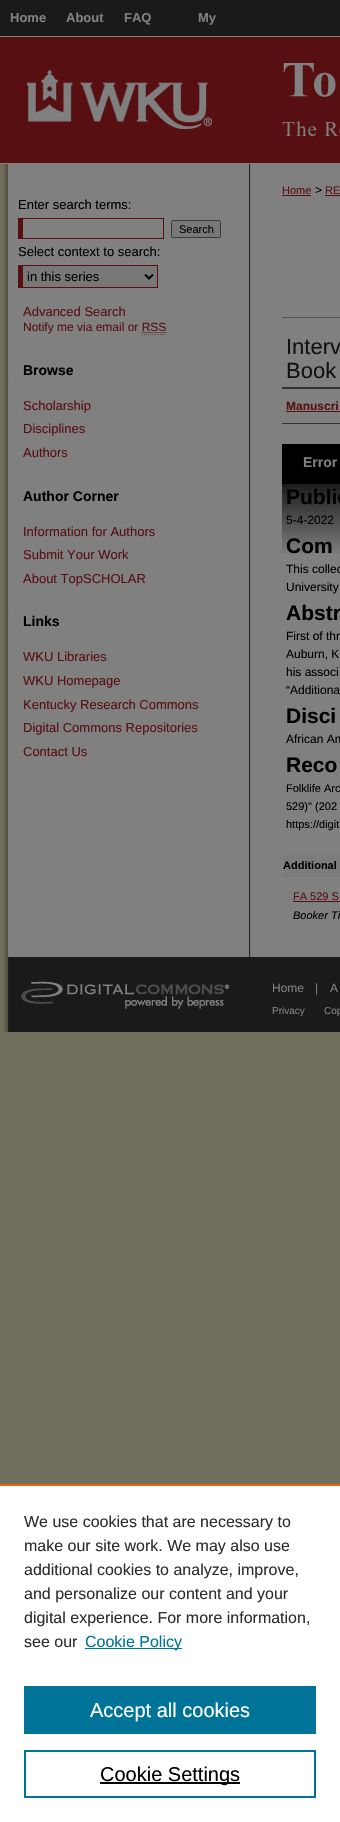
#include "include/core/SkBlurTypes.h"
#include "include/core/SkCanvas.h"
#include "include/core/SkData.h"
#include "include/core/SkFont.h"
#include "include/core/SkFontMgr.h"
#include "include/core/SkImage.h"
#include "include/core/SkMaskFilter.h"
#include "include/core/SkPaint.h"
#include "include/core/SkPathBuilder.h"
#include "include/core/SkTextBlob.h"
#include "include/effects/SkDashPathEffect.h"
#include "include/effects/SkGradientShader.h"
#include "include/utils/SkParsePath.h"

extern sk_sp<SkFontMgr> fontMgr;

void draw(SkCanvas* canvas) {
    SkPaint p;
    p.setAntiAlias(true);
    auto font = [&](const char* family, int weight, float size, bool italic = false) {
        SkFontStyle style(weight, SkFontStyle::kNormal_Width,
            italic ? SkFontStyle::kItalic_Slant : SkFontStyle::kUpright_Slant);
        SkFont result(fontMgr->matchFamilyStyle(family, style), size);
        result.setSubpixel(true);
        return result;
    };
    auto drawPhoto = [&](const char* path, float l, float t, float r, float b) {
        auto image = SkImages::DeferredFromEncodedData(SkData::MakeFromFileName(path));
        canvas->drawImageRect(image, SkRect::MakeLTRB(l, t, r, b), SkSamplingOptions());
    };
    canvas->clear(0xFF716D5C);
    {
        const struct { float l, t, r, b; SkColor color; } items[] = {
            {0, 37, 340, 163, 0xFF580F12},
            {0, 0, 340, 36, 0xFF1A1A1A},
            {0, 36, 340, 37, 0xFF808080},
        };
        for (auto [l, t, r, b, color] : items) {
            p.setColor(color);
            canvas->drawRect(SkRect::MakeLTRB(l, t, r, b), p);
        }
    }
    auto font1 = font("Liberation Sans", 700, 13);
    {
        const struct { const char* s; float x, y; } items[] = {
            {"Home", 10, 22},
            {"About", 66, 22},
            {"FAQ", 124, 22},
            {"My", 198, 22},
        };
        for (auto [s, x, y] : items) {
            canvas->drawString(s, x, y, font1, p);
        }
    }
    drawPhoto("media/1.png", 27, 49, 233, 129);
    drawPhoto("media/2.png", 282, 63, 340, 137);
    canvas->drawRect(SkRect::MakeLTRB(251, 164, 340, 957), p);
    drawPhoto("media/3.png", 0, 164, 251, 957);
    canvas->drawRect(SkRect::MakeLTRB(0, 163, 340, 164), p);
    auto font2 = font("Liberation Sans", 400, 13);
    p.setColor(0xFF000000);
    canvas->drawString("Enter search terms:", 18, 209, font2, p);
    {
        const struct { float l, t, r, b; SkColor color; } items[] = {
            {18, 218, 164, 219, 0xFF580F12},
            {163, 218, 164, 239, 0xFF580F12},
            {18, 238, 164, 239, 0xFF580F12},
            {18, 218, 23, 239, 0xFF580F12},
        };
        for (auto [l, t, r, b, color] : items) {
            p.setColor(color);
            canvas->drawRect(SkRect::MakeLTRB(l, t, r, b), p);
        }
    }
    p.setColor(0xFF787878);
    canvas->drawRoundRect(SkRect::MakeLTRB(171.5f, 220.5f, 220.5f, 237.5f), 1.5f, 1.5f, p);
    p.setStyle(SkPaint::kStroke_Style);
    p.setStrokeWidth(1);
    p.setColor(0xFF3B3B3B);
    canvas->drawRoundRect(SkRect::MakeLTRB(171.5f, 220.5f, 220.5f, 237.5f), 1.5f, 1.5f, p);
    auto font3 = font("Liberation Sans", 400, 11);
    p.setStyle(SkPaint::kFill_Style);
    p.setColor(0xFF000000);
    canvas->drawString("Search", 179, 233, font3, p);
    canvas->drawString("Select context to search:", 18, 256, font2, p);
    {
        const struct { float l, t, r, b; SkColor color; } items[] = {
            {23, 266, 157, 287, 0xFF787878},
            {18, 265, 158, 266, 0xFF580F12},
            {157, 265, 158, 288, 0xFF580F12},
            {18, 287, 158, 288, 0xFF580F12},
            {18, 265, 23, 288, 0xFF580F12},
        };
        for (auto [l, t, r, b, color] : items) {
            p.setColor(color);
            canvas->drawRect(SkRect::MakeLTRB(l, t, r, b), p);
        }
    }
    p.setStyle(SkPaint::kStroke_Style);
    p.setStrokeWidth(2);
    p.setColor(0xFF000000);
    canvas->drawPath(SkPathBuilder().moveTo(145, 274.5f).lineTo(149, 278.5f).lineTo(153, 274.5f).detach(), p);
    p.setStyle(SkPaint::kFill_Style);
    canvas->drawString("in this series", 27, 281, font2, p);
    p.setColor(0xFF580F12);
    canvas->drawString("Advanced Search", 23, 316, font2, p);
    auto font4 = font("Liberation Sans", 400, 12);
    canvas->drawString("Notify me via email or RSS", 23, 331, font4, p);
    p.setStyle(SkPaint::kStroke_Style);
    p.setStrokeWidth(1);
    p.setPathEffect(SkDashPathEffect::Make({{1, 1}}, 0));
    canvas->drawPath(SkPathBuilder().moveTo(141.5f, 332.5f).lineTo(166.5f, 332.5f).detach(), p);
    p.setPathEffect(nullptr);
    p.setColor(0xFF4D4D4D);
    p.setPathEffect(SkDashPathEffect::Make({{1, 1}}, 0));
    canvas->drawPath(SkPathBuilder().moveTo(142, 334.5f).lineTo(166, 334.5f).detach(), p);
    p.setPathEffect(nullptr);
    p.setStyle(SkPaint::kFill_Style);
    p.setColor(0xFF808080);
    canvas->drawRect(SkRect::MakeLTRB(8, 360, 9, 381), p);
    auto font5 = font("Liberation Sans", 700, 14);
    p.setColor(0xFF000000);
    canvas->drawString("Browse", 23, 375, font5, p);
    p.setColor(0xFF580F12);
    {
        const struct { const char* s; float x, y; } items[] = {
            {"Scholarship", 23, 410},
            {"Disciplines", 23, 433},
            {"Authors", 23, 457},
        };
        for (auto [s, x, y] : items) {
            canvas->drawString(s, x, y, font2, p);
        }
    }
    p.setColor(0xFF808080);
    canvas->drawRect(SkRect::MakeLTRB(8, 486, 9, 507), p);
    p.setColor(0xFF000000);
    canvas->drawString("Author Corner", 23, 501, font5, p);
    p.setColor(0xFF580F12);
    {
        const struct { const char* s; float x, y; } items[] = {
            {"Information for Authors", 23, 536},
            {"Submit Your Work", 23, 559},
            {"About TopSCHOLAR", 23, 583},
        };
        for (auto [s, x, y] : items) {
            canvas->drawString(s, x, y, font2, p);
        }
    }
    p.setColor(0xFF808080);
    canvas->drawRect(SkRect::MakeLTRB(8, 611, 9, 632), p);
    p.setColor(0xFF000000);
    canvas->drawString("Links", 23, 626, font5, p);
    p.setColor(0xFF580F12);
    {
        const struct { const char* s; float x, y; } items[] = {
            {"WKU Libraries", 23, 661},
            {"WKU Homepage", 23, 685},
            {"Kentucky Research Commons", 23, 709},
            {"Digital Commons Repositories", 23, 732},
            {"Contact Us", 23, 756},
        };
        for (auto [s, x, y] : items) {
            canvas->drawString(s, x, y, font2, p);
        }
    }
    canvas->drawString("Home", 282, 194, font3, p);
    canvas->drawRect(SkRect::MakeLTRB(282, 195, 311, 196), p);
    p.setColor(0xFF000000);
    canvas->drawString(">", 315, 194, font4, p);
    p.setColor(0xFF580F12);
    canvas->drawString("RE", 325, 194, font3, p);
    canvas->drawRect(SkRect::MakeLTRB(325, 195, 340, 196), p);
    p.setColor(0xFF555555);
    canvas->drawRect(SkRect::MakeLTRB(282, 317, 340, 318), p);
    auto font6 = font("Liberation Sans", 400, 22);
    p.setColor(0xFF111111);
    canvas->drawString("Interv", 286, 354, font6, p);
    canvas->drawString("Book", 286, 378, font6, p);
    p.setColor(0xFF333333);
    canvas->drawRect(SkRect::MakeLTRB(282, 387, 340, 389), p);
    canvas->drawRect(SkRect::MakeLTRB(282, 423, 340, 424), p);
    auto font7 = font("Liberation Sans", 700, 12);
    p.setColor(0xFF580F12);
    canvas->drawString("Manuscri", 286, 410, font7, p);
    canvas->drawRect(SkRect::MakeLTRB(286, 411, 340, 412), p);
    p.setColor(0xFF000000);
    canvas->drawRect(SkRect::MakeLTRB(282, 465, 340, 484), p);
    auto font8 = font("Liberation Sans", 700, 21);
    canvas->drawString("Public", 286, 504, font8, p);
    canvas->drawString("5-4-2022", 286, 524, font4, p);
    canvas->drawString("Com", 286, 553, font8, p);
    {
        const SkColor colors[] = {0xFF000000, 0xFF000000, 0x00000000};
        const float stops[] = {0, 0.18f, 1};
        const SkPoint ends[] = {{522, 444}, {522, 556}};
        p.setShader(SkGradientShader::MakeLinear(ends, colors, stops, 3, SkTileMode::kClamp));
        p.setAlpha(255);
    }
    canvas->drawRect(SkRect::MakeLTRB(282, 444, 340, 554), p);
    p.setShader(nullptr);
    p.setColor(0xFF808080);
    canvas->drawString("Error", 303, 467, font5, p);
    p.setColor(0xFF000000);
    canvas->drawString("This collec", 286, 573, font4, p);
    canvas->drawString("University", 286, 591, font4, p);
    canvas->drawString("Abstr", 286, 620, font8, p);
    {
        const struct { const char* s; float x, y; } items[] = {
            {"First of thr", 286, 640},
            {"Auburn, K", 286, 658},
            {"his associ", 286, 676},
            {"“Additiona", 286, 694},
        };
        for (auto [s, x, y] : items) {
            canvas->drawString(s, x, y, font4, p);
        }
    }
    canvas->drawString("Disci", 286, 723, font8, p);
    canvas->drawString("African Am", 286, 743, font4, p);
    canvas->drawString("Reco", 286, 772, font8, p);
    {
        const struct { const char* s; float x, y; } items[] = {
            {"Folklife Arc", 286, 792},
            {"529)\" (202", 286, 810},
            {"https://digit", 286, 828},
        };
        for (auto [s, x, y] : items) {
            canvas->drawString(s, x, y, font3, p);
        }
    }
    p.setColor(0xFF7C7C7C);
    canvas->drawRect(SkRect::MakeLTRB(283, 854, 340, 877), p);
    auto font9 = font("Liberation Sans", 700, 11);
    p.setColor(0xFF000000);
    canvas->drawString("Additional", 283, 869, font9, p);
    p.setColor(0xFF580F12);
    canvas->drawString("FA 529 S", 293, 900, font3, p);
    canvas->drawRect(SkRect::MakeLTRB(293, 901, 340, 902), p);
    auto font10 = font("Liberation Sans", 400, 11, true);
    p.setColor(0xFF000000);
    canvas->drawString("Booker Ti", 293, 919, font10, p);
    p.setColor(0xFF1A1A1A);
    canvas->drawRect(SkRect::MakeLTRB(240, 957, 340, 1032), p);
    drawPhoto("media/4.png", 0, 957, 240, 1032);
    p.setColor(0xFF808080);
    {
        const struct { const char* s; float x, y; } items[] = {
            {"Home", 272, 992},
            {"|", 315, 992},
            {"A", 330, 992},
        };
        for (auto [s, x, y] : items) {
            canvas->drawString(s, x, y, font4, p);
        }
    }
    auto font11 = font("Liberation Sans", 400, 10);
    canvas->drawString("Privacy", 272, 1014, font11, p);
    canvas->drawString("Cop", 324, 1014, font11, p);
    p.setColor(0xFFFFFFFF);
    canvas->drawRect(SkRect::MakeLTRB(0, 1486, 340, 1822), p);
    p.setColor(0xFFEB6500);
    canvas->drawRect(SkRect::MakeLTRB(0, 1484, 340, 1486), p);
    auto font12 = font("Liberation Sans", 400, 16);
    p.setColor(0xFF2E2E2E);
    {
        const struct { const char* s; float x, y; } items[] = {
            {"We use cookies that are necessary to", 24, 1527},
            {"make our site work. We may also use", 24, 1551},
            {"additional cookies to analyze, improve,", 24, 1575},
            {"and personalize our content and your", 24, 1599},
            {"digital experience. For more information,", 24, 1623},
            {"see our", 24, 1647},
        };
        for (auto [s, x, y] : items) {
            canvas->drawString(s, x, y, font12, p);
        }
    }
    p.setColor(0xFF007398);
    canvas->drawRect(SkRect::MakeLTRB(85, 1648, 182, 1649), p);
    canvas->drawString("Cookie Policy", 85, 1647, font12, p);
    canvas->drawRect(SkRect::MakeLTRB(24, 1686, 316, 1734), p);
    auto font13 = font("Liberation Sans", 400, 20);
    p.setColor(0xFFFFFFFF);
    canvas->drawString("Accept all cookies", 90, 1717, font13, p);
    p.setStyle(SkPaint::kStroke_Style);
    p.setStrokeWidth(2);
    p.setColor(0xFF007398);
    canvas->drawRect(SkRect::MakeLTRB(25, 1751, 315, 1797), p);
    p.setStyle(SkPaint::kFill_Style);
    p.setColor(0xFF000000);
    canvas->drawRect(SkRect::MakeLTRB(100, 1782, 240, 1784), p);
    canvas->drawString("Cookie Settings", 100, 1781, font13, p);
}
